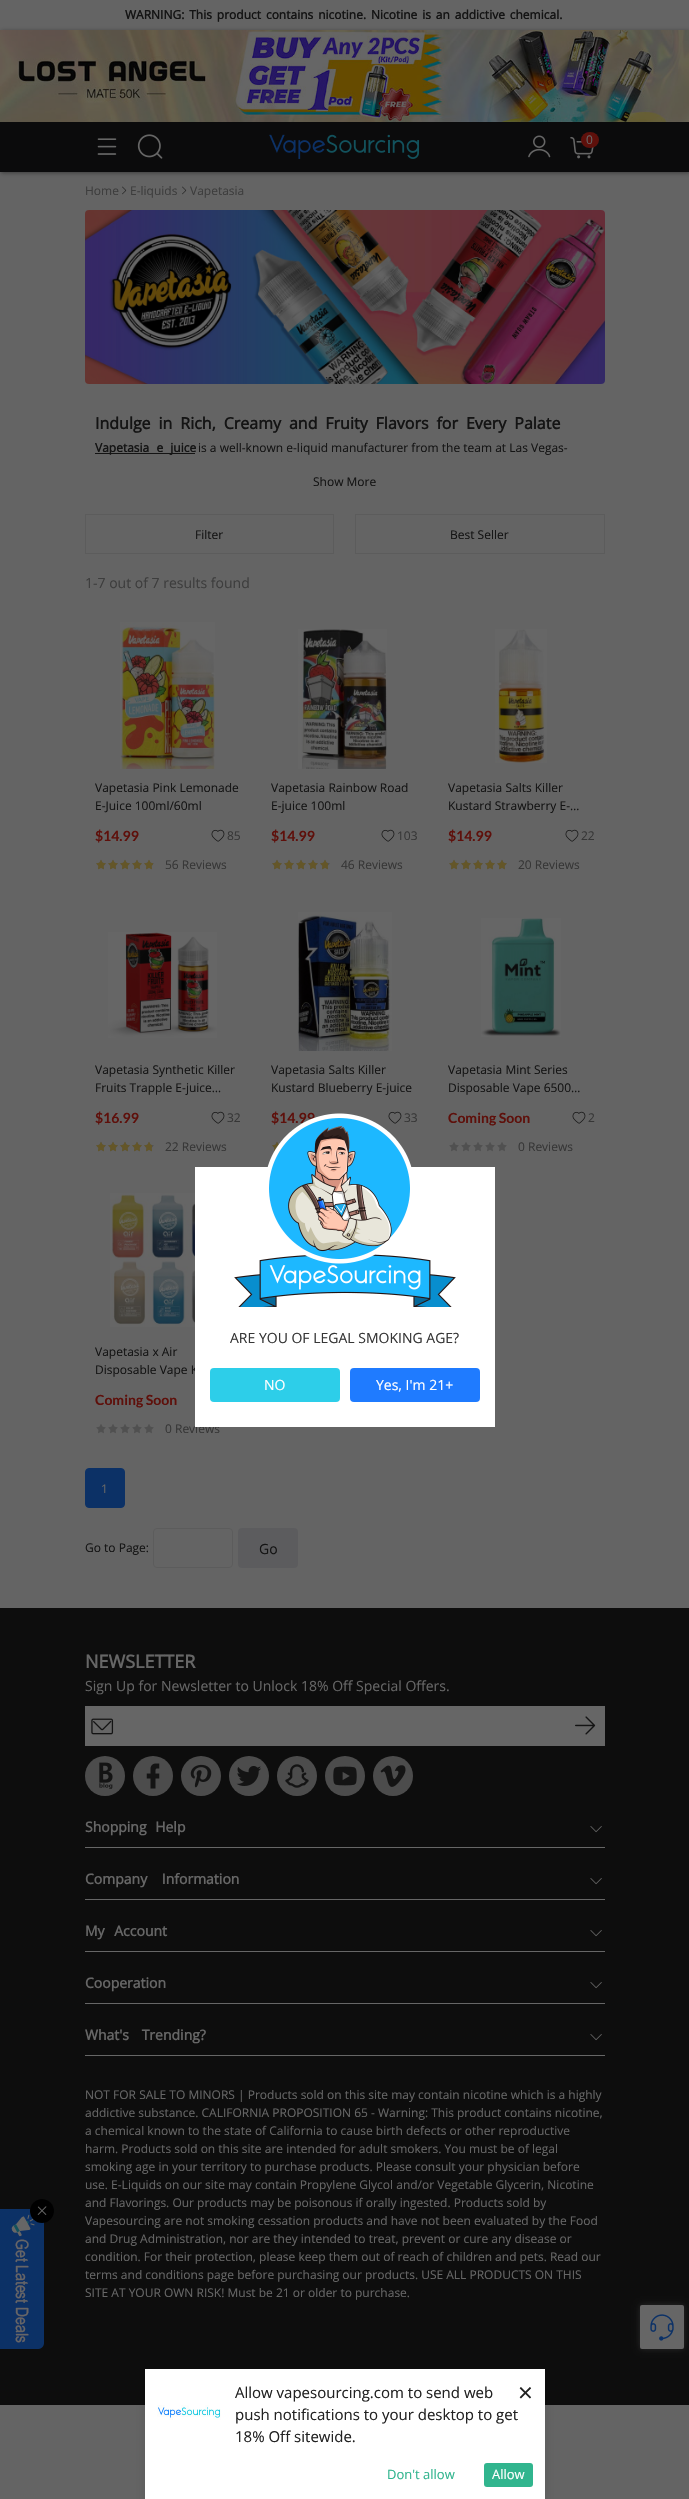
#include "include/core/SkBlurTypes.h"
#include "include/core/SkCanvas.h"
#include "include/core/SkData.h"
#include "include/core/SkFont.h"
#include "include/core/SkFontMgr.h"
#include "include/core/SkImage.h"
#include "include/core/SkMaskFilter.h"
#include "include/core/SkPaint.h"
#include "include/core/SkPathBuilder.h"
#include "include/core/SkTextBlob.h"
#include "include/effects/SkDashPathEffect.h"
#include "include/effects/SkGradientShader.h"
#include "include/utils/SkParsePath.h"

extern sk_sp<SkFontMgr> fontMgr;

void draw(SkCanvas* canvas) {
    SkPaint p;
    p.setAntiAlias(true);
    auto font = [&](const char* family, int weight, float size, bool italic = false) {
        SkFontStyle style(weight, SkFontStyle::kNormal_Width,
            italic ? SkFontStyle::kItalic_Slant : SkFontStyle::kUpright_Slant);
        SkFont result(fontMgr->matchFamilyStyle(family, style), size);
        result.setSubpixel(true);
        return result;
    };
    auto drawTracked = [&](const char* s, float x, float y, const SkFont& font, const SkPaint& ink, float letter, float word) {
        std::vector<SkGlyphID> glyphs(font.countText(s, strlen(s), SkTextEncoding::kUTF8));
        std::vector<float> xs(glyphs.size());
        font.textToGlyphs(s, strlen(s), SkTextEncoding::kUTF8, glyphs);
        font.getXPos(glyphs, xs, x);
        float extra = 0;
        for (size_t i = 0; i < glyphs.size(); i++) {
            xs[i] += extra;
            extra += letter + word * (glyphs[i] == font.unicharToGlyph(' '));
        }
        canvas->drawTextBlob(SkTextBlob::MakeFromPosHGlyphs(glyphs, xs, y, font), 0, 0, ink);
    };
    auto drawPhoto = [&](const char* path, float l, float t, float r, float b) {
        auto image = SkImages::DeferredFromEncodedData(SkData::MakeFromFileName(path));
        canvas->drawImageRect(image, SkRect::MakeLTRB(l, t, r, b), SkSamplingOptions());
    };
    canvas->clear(0xFF646464);
    p.setColor(0xFF0D0D0D);
    canvas->drawRect(SkRect::MakeLTRB(0, 1608, 689, 2405), p);
    drawPhoto("media/2.png", 0, 2209, 44, 2349);
    p.setColor(0xFF000000);
    canvas->drawCircle(42, 2211, 12, p);
    drawPhoto("media/1.png", 37, 2206, 47, 2215);
    auto font1 = font("Open Sans", 700, 12);
    p.setColor(0xFF141414);
    drawTracked("WARNING: This product contains nicotine. Nicotine is an addictive chemical.", 125, 19, font1, p, 0, 1.75f);
    p.setColor(0x66000000);
    p.setMaskFilter(SkMaskFilter::MakeBlur(kNormal_SkBlurStyle, 2));
    canvas->drawRect(SkRect::MakeLTRB(1, 31, 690, 173), p);
    p.setMaskFilter(nullptr);
    p.setColor(0xFF0B0B0C);
    canvas->drawRect(SkRect::MakeLTRB(0, 122, 689, 172), p);
    drawPhoto("media/3.png", 0, 30, 689, 122);
    drawPhoto("media/4.png", 97, 138, 117, 155);
    drawPhoto("media/5.png", 137, 134, 163, 159);
    drawPhoto("media/6.png", 269, 134, 419, 159);
    drawPhoto("media/7.png", 528, 135, 551, 158);
    drawPhoto("media/8.png", 570, 136, 594, 159);
    p.setColor(0xFF5E100B);
    canvas->drawOval(SkRect::MakeLTRB(581, 132, 599, 148), p);
    auto font2 = font("Open Sans", 400, 12);
    p.setColor(0xFF666666);
    canvas->drawString("0", 586, 144, font2, p);
    p.setColor(0xFF3D3D3D);
    canvas->drawString("Home", 85, 195, font2, p);
    drawPhoto("media/9.png", 122, 186, 127, 195);
    canvas->drawString("E-liquids", 130, 195, font2, p);
    drawPhoto("media/9.png", 182, 186, 187, 195);
    canvas->drawString("Vapetasia", 190, 195, font2, p);
    drawPhoto("media/10.png", 85, 210, 605, 384);
    auto font3 = font("Open Sans", 700, 16);
    p.setColor(0xFF141414);
    drawTracked("Indulge in Rich, Creamy and Fruity Flavors for Every Palate", 95, 429, font3, p, 0, 3.75f);
    canvas->drawRect(SkRect::MakeLTRB(95, 453, 195, 454), p);
    drawTracked("Vapetasia e juice", 95, 452, font1, p, 0, 4);
    canvas->drawString("is a well-known e-liquid manufacturer from the team at Las Vegas-", 198, 452, font2, p);
    canvas->drawString("Show More", 313, 486, font2, p);
    p.setStyle(SkPaint::kStroke_Style);
    p.setStrokeWidth(1);
    p.setColor(0xFF5C5C5C);
    canvas->drawRect(SkRect::MakeLTRB(85.5f, 514.5f, 333.5f, 553.5f), p);
    p.setStyle(SkPaint::kFill_Style);
    p.setColor(0xFF141414);
    canvas->drawString("Filter", 195, 539, font2, p);
    p.setStyle(SkPaint::kStroke_Style);
    p.setColor(0xFF5C5C5C);
    canvas->drawRect(SkRect::MakeLTRB(355.5f, 514.5f, 604.5f, 553.5f), p);
    p.setStyle(SkPaint::kFill_Style);
    p.setColor(0xFF141414);
    canvas->drawString("Best Seller", 450, 539, font2, p);
    auto font4 = font("Open Sans", 400, 14);
    p.setColor(0xFF3D3D3D);
    canvas->drawString("1-7 out of 7 results found", 85, 588, font4, p);
    drawPhoto("media/11.png", 120, 622, 215, 769);
    p.setColor(0xFF141414);
    canvas->drawString("Vapetasia Pink Lemonade", 95, 792, font2, p);
    canvas->drawString("E-Juice 100ml/60ml", 95, 810, font2, p);
    auto font5 = font("Lato", 700, 14);
    p.setColor(0xFF5E100B);
    canvas->drawString("$14.99", 95, 841, font5, p);
    drawPhoto("media/12.png", 211, 829, 225, 842);
    p.setColor(0xFF363636);
    canvas->drawString("85", 227, 840, font2, p);
    drawPhoto("media/14.png", 96, 860, 154, 870);
    drawPhoto("media/13.png", 96, 859, 153, 870);
    canvas->drawString("56 Reviews", 165, 869, font2, p);
    drawPhoto("media/15.png", 298, 629, 387, 769);
    p.setColor(0xFF141414);
    canvas->drawString("Vapetasia Rainbow Road", 271, 792, font2, p);
    canvas->drawString("E-juice 100ml", 271, 810, font2, p);
    p.setColor(0xFF5E100B);
    canvas->drawString("$14.99", 271, 841, font5, p);
    drawPhoto("media/12.png", 381, 829, 395, 842);
    p.setColor(0xFF363636);
    canvas->drawString("103", 397, 840, font2, p);
    drawPhoto("media/14.png", 272, 860, 330, 870);
    drawPhoto("media/16.png", 272, 859, 328, 870);
    canvas->drawString("46 Reviews", 341, 869, font2, p);
    drawPhoto("media/17.png", 495, 629, 547, 763);
    p.setColor(0xFF141414);
    canvas->drawString("Vapetasia Salts Killer", 448, 792, font2, p);
    canvas->drawString("Kustard Strawberry E-…", 448, 810, font2, p);
    p.setColor(0xFF5E100B);
    canvas->drawString("$14.99", 448, 841, font5, p);
    drawPhoto("media/12.png", 565, 829, 579, 842);
    p.setColor(0xFF363636);
    canvas->drawString("22", 581, 840, font2, p);
    drawPhoto("media/14.png", 449, 860, 507, 870);
    drawPhoto("media/18.png", 449, 859, 507, 870);
    canvas->drawString("20 Reviews", 518, 869, font2, p);
    drawPhoto("media/19.png", 108, 932, 217, 1038);
    p.setColor(0xFF141414);
    canvas->drawString("Vapetasia Synthetic Killer", 95, 1074, font2, p);
    canvas->drawString("Fruits Trapple E-juice…", 95, 1092, font2, p);
    p.setColor(0xFF5E100B);
    canvas->drawString("$16.99", 95, 1123, font5, p);
    drawPhoto("media/12.png", 211, 1111, 225, 1124);
    p.setColor(0xFF363636);
    canvas->drawString("32", 227, 1122, font2, p);
    drawPhoto("media/14.png", 96, 1142, 154, 1152);
    drawPhoto("media/16.png", 96, 1141, 152, 1152);
    canvas->drawString("22 Reviews", 165, 1151, font2, p);
    drawPhoto("media/20.png", 298, 912, 392, 1051);
    p.setColor(0xFF141414);
    canvas->drawString("Vapetasia Salts Killer", 271, 1074, font2, p);
    canvas->drawString("Kustard Blueberry E-juice", 271, 1092, font2, p);
    p.setColor(0xFF5E100B);
    canvas->drawString("$14.99", 271, 1123, font5, p);
    drawPhoto("media/12.png", 388, 1111, 402, 1124);
    p.setColor(0xFF363636);
    canvas->drawString("33", 404, 1122, font2, p);
    drawPhoto("media/22.png", 272, 1142, 280, 1152);
    drawPhoto("media/21.png", 272, 1141, 280, 1152);
    drawPhoto("media/23.png", 481, 918, 561, 1037);
    p.setColor(0xFF141414);
    canvas->drawString("Vapetasia Mint Series", 448, 1074, font2, p);
    canvas->drawString("Disposable Vape 6500…", 448, 1092, font2, p);
    p.setColor(0xFF5E100B);
    canvas->drawString("Coming Soon", 448, 1123, font5, p);
    drawPhoto("media/12.png", 572, 1111, 586, 1124);
    p.setColor(0xFF363636);
    canvas->drawString("2", 588, 1122, font2, p);
    drawPhoto("media/14.png", 449, 1142, 507, 1152);
    canvas->drawString("0 Reviews", 518, 1151, font2, p);
    drawPhoto("media/24.png", 110, 1193, 195, 1327);
    p.setColor(0xFF141414);
    canvas->drawString("Vapetasia x Air", 95, 1356, font2, p);
    canvas->drawString("Disposable Vape K", 95, 1374, font2, p);
    p.setColor(0xFF5E100B);
    canvas->drawString("Coming Soon", 95, 1405, font5, p);
    drawPhoto("media/14.png", 96, 1424, 154, 1434);
    p.setColor(0xFF363636);
    canvas->drawString("0 Reviews", 165, 1433, font2, p);
    p.setColor(0xFF0C3166);
    canvas->drawRoundRect(SkRect::MakeLTRB(85.5f, 1468.5f, 124.5f, 1507.5f), 3.5f, 3.5f, p);
    p.setStyle(SkPaint::kStroke_Style);
    canvas->drawRoundRect(SkRect::MakeLTRB(85.5f, 1468.5f, 124.5f, 1507.5f), 3.5f, 3.5f, p);
    p.setStyle(SkPaint::kFill_Style);
    p.setColor(0xFF666666);
    canvas->drawString("1", 101, 1493, font2, p);
    p.setColor(0xFF141414);
    canvas->drawString("Go to Page:", 85, 1552, font2, p);
    p.setStyle(SkPaint::kStroke_Style);
    p.setColor(0xFF5C5C5C);
    canvas->drawRoundRect(SkRect::MakeLTRB(153.5f, 1528.5f, 232.5f, 1567.5f), 3.5f, 3.5f, p);
    p.setStyle(SkPaint::kFill_Style);
    p.setColor(0xFF5C5C5E);
    canvas->drawRoundRect(SkRect::MakeLTRB(238, 1528, 298, 1568), 4, 4, p);
    p.setColor(0xFF141414);
    canvas->drawString("Go", 259, 1554, font4, p);
    p.setColor(0xFFFFFFFF);
    canvas->drawRect(SkRect::MakeLTRB(195, 1167, 495, 1427), p);
    drawPhoto("media/25.png", 234, 1113, 456, 1307);
    p.setColor(0xFF363636);
    canvas->drawString("ARE YOU OF LEGAL SMOKING AGE?", 230, 1343, font4, p);
    p.setColor(0xFF2DCEE9);
    canvas->drawRoundRect(SkRect::MakeLTRB(210, 1368, 340, 1402), 4, 4, p);
    p.setColor(0xFFFFFFFF);
    canvas->drawString("NO", 264, 1390, font4, p);
    p.setColor(0xFF1F7BFF);
    canvas->drawRoundRect(SkRect::MakeLTRB(350, 1368, 480, 1402), 4, 4, p);
    p.setColor(0xFFFFFFFF);
    canvas->drawString("Yes, I'm 21+", 376, 1390, font4, p);
    auto font6 = font("Open Sans", 700, 18);
    p.setColor(0xFF666666);
    canvas->drawString("NEWSLETTER", 85, 1668, font6, p);
    canvas->drawString("Sign Up for Newsletter to Unlock 18% Off Special Offers.", 85, 1691, font4, p);
    canvas->drawRect(SkRect::MakeLTRB(85, 1706, 605, 1746), p);
    drawPhoto("media/26.png", 91, 1718, 114, 1735);
    drawPhoto("media/27.png", 575, 1716, 596, 1735);
    p.setColor(0xFF4C4C4C);
    canvas->drawCircle(105, 1776, 20, p);
    drawPhoto("media/28.png", 99, 1762, 113, 1789);
    canvas->drawCircle(153, 1776, 20, p);
    drawPhoto("media/29.png", 146, 1763, 160, 1789);
    canvas->drawCircle(201, 1776, 20, p);
    drawPhoto("media/30.png", 190, 1764, 212, 1788);
    canvas->drawCircle(249, 1776, 20, p);
    drawPhoto("media/31.png", 236, 1766, 261, 1786);
    canvas->drawCircle(297, 1776, 20, p);
    drawPhoto("media/32.png", 285, 1764, 309, 1788);
    canvas->drawCircle(345, 1776, 20, p);
    drawPhoto("media/33.png", 333, 1766, 357, 1786);
    canvas->drawCircle(393, 1776, 20, p);
    drawPhoto("media/34.png", 380, 1765, 406, 1787);
    p.setColor(0xFF666666);
    canvas->drawRect(SkRect::MakeLTRB(85, 1847, 605, 1848), p);
    auto font7 = font("Open Sans", 700, 14);
    drawTracked("Shopping Help", 85, 1832, font7, p, 0, 5);
    drawPhoto("media/35.png", 590, 1826, 602, 1833);
    canvas->drawRect(SkRect::MakeLTRB(85, 1899, 605, 1900), p);
    drawTracked("Company Information", 85, 1884, font7, p, 0, 11);
    drawPhoto("media/35.png", 590, 1878, 602, 1885);
    canvas->drawRect(SkRect::MakeLTRB(85, 1951, 605, 1952), p);
    drawTracked("My Account", 85, 1936, font7, p, 0, 6);
    drawPhoto("media/35.png", 590, 1930, 602, 1937);
    canvas->drawRect(SkRect::MakeLTRB(85, 2003, 605, 2004), p);
    canvas->drawString("Cooperation", 85, 1988, font7, p);
    drawPhoto("media/35.png", 590, 1982, 602, 1989);
    canvas->drawRect(SkRect::MakeLTRB(85, 2055, 605, 2056), p);
    drawTracked("What's Trending?", 85, 2040, font7, p, 0, 9);
    drawPhoto("media/35.png", 590, 2034, 602, 2041);
    {
        const struct { const char* s; float x, y; } items[] = {
            {"NOT FOR SALE TO MINORS | Products sold on this site may contain nicotine which is a highly", 85, 2099},
            {"addictive substance. CALIFORNIA PROPOSITION 65 - Warning: This product contains nicotine,", 85, 2117},
            {"a chemical known to the state of California to cause birth defects or other reproductive", 85, 2135},
            {"harm. Products sold on this site are intended for adult smokers. You must be of legal", 85, 2153},
            {"smoking age in your territory to purchase products. Please consult your physician before", 85, 2171},
            {"use. E-Liquids on our site may contain Propylene Glycol and/or Vegetable Glycerin, Nicotine", 85, 2189},
            {"and Flavorings. Our products may be poisonous if orally ingested. Products sold by", 85, 2207},
            {"Vapesourcing are not smoking cessation products and have not been evaluated by the Food", 85, 2225},
            {"and Drug Administration, nor are they intended to treat, prevent or cure any disease or", 85, 2243},
            {"condition. For their protection, please keep them out of reach of children and pets. Read our", 85, 2261},
            {"terms and conditions page before purchasing our products. USE ALL PRODUCTS ON THIS", 85, 2279},
            {"SITE AT YOUR OWN RISK! Must be 21 or older to purchase.", 85, 2297},
        };
        for (auto [s, x, y] : items) {
            canvas->drawString(s, x, y, font2, p);
        }
    }
    p.setColor(0xCC313131);
    p.setMaskFilter(SkMaskFilter::MakeBlur(kNormal_SkBlurStyle, 3));
    canvas->drawRect(SkRect::MakeLTRB(640, 2305, 684, 2349), p);
    p.setMaskFilter(nullptr);
    p.setColor(0xFF666666);
    canvas->drawRoundRect(SkRect::MakeLTRB(640, 2305, 684, 2349), 2, 2, p);
    drawPhoto("media/36.png", 650, 2314, 674, 2341);
    p.setColor(0x1A000000);
    p.setMaskFilter(SkMaskFilter::MakeBlur(kNormal_SkBlurStyle, 5));
    canvas->drawRect(SkRect::MakeLTRB(145, 2373, 545, 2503), p);
    p.setMaskFilter(nullptr);
    p.setColor(0xFFFFFFFF);
    canvas->drawRect(SkRect::MakeLTRB(145, 2369, 545, 2499), p);
    drawPhoto("media/37.png", 157, 2405, 221, 2420);
    auto font8 = font("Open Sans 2", 400, 15);
    p.setColor(0xFF222222);
    {
        const struct { const char* s; float x, y; } items[] = {
            {"Allow vapesourcing.com to send web", 235, 2398},
            {"push notifications to your desktop to get", 235, 2420},
            {"18% Off sitewide.", 235, 2442},
        };
        for (auto [s, x, y] : items) {
            canvas->drawString(s, x, y, font8, p);
        }
    }
    auto font9 = font("Open Sans 2", 400, 13);
    p.setColor(0xFF31B58E);
    canvas->drawString("Don't allow", 387, 2479, font9, p);
    canvas->drawRoundRect(SkRect::MakeLTRB(484, 2463, 533, 2487), 3, 3, p);
    p.setColor(0xFFFFFFFF);
    canvas->drawString("Allow", 492, 2479, font9, p);
    auto font10 = font("Open Sans 2", 400, 26);
    p.setColor(0xFF222222);
    canvas->drawString("×", 518, 2402, font10, p);
}
